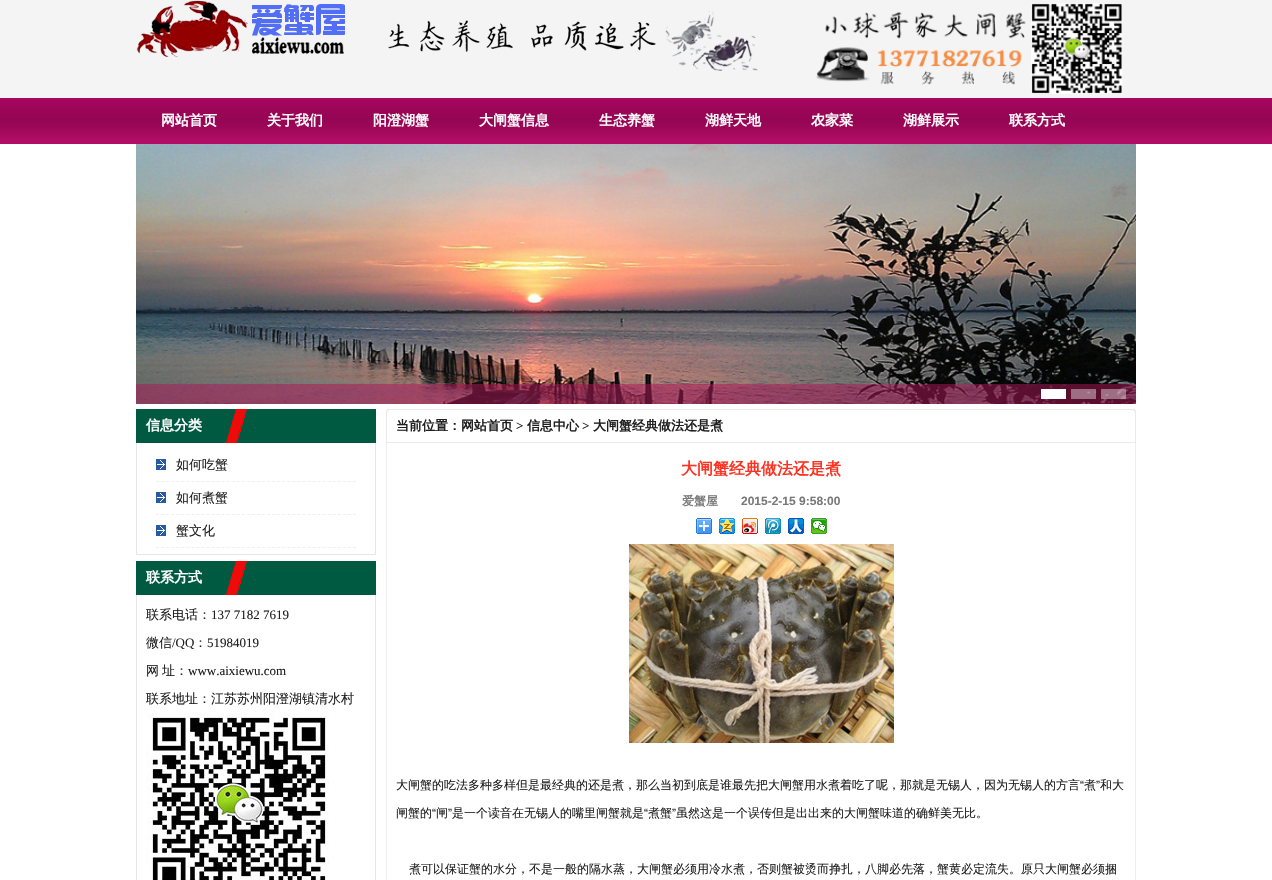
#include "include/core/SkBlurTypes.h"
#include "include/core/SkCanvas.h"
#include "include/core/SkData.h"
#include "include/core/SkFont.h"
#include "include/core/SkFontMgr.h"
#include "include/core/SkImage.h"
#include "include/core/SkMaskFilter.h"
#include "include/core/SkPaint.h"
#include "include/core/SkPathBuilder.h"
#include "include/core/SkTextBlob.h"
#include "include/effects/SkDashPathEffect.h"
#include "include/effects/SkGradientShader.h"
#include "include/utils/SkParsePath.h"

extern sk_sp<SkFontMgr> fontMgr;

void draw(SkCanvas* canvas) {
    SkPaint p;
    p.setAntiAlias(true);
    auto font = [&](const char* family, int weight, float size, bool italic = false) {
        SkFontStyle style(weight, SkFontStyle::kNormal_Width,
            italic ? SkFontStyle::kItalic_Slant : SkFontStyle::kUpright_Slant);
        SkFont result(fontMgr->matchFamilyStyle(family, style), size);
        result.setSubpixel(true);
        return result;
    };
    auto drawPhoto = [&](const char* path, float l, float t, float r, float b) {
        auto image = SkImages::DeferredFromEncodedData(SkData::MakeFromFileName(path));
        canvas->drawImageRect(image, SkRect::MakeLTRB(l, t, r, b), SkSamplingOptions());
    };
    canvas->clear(0xFFFFFFFF);
    p.setColor(0xFFF4F4F4);
    canvas->drawRect(SkRect::MakeLTRB(0, 0, 1272, 98), p);
    drawPhoto("media/1.png", 136, 0, 345, 57);
    drawPhoto("media/2.png", 388, 11, 758, 71);
    drawPhoto("media/3.png", 816, 3, 1123, 94);
    drawPhoto("media/4.png", 0, 98, 1272, 144);
    auto font1 = font("WenQuanYi Zen Hei", 700, 14);
    p.setColor(0xFFFFFFFF);
    {
        const struct { const char* s; float x, y; } items[] = {
            {"网站首页", 161, 125},
            {"关于我们", 267, 125},
            {"阳澄湖蟹", 373, 125},
            {"大闸蟹信息", 479, 125},
            {"生态养蟹", 599, 125},
            {"湖鲜天地", 705, 125},
            {"农家菜", 811, 125},
            {"湖鲜展示", 903, 125},
            {"联系方式", 1009, 125},
        };
        for (auto [s, x, y] : items) {
            canvas->drawString(s, x, y, font1, p);
        }
    }
    drawPhoto("media/5.png", 136, 144, 1136, 404);
    {
        const struct { float l, t, r, b; SkColor color; } items[] = {
            {136, 384, 1136, 404, 0x80AF1657},
            {1041, 389, 1066, 399, 0xFFFFFFFF},
            {1071, 389, 1096, 399, 0x66FFFFFF},
            {1101, 389, 1126, 399, 0x66FFFFFF},
        };
        for (auto [l, t, r, b, color] : items) {
            p.setColor(color);
            canvas->drawRect(SkRect::MakeLTRB(l, t, r, b), p);
        }
    }
    drawPhoto("media/6.png", 136, 409, 376, 443);
    p.setColor(0xFFFFFFFF);
    canvas->drawString("信息分类", 146, 430, font1, p);
    {
        const struct { float l, t, r, b; SkColor color; } items[] = {
            {375, 443, 376, 555, 0xFFE6E6E6},
            {136, 554, 376, 555, 0xFFE6E6E6},
            {136, 443, 137, 555, 0xFFE6E6E6},
        };
        for (auto [l, t, r, b, color] : items) {
            p.setColor(color);
            canvas->drawRect(SkRect::MakeLTRB(l, t, r, b), p);
        }
    }
    drawPhoto("media/7.png", 156, 459, 166, 470);
    p.setStyle(SkPaint::kStroke_Style);
    p.setStrokeWidth(1);
    p.setColor(0xFFEFEFEF);
    p.setPathEffect(SkDashPathEffect::Make({{3, 2.05f}}, 0));
    canvas->drawPath(SkPathBuilder().moveTo(156, 481.5f).lineTo(356, 481.5f).detach(), p);
    p.setPathEffect(nullptr);
    auto font2 = font("WenQuanYi Zen Hei", 500, 13);
    p.setStyle(SkPaint::kFill_Style);
    p.setColor(0xFF1F1F1F);
    canvas->drawString("如何吃蟹", 176, 469, font2, p);
    drawPhoto("media/7.png", 156, 492, 166, 503);
    p.setStyle(SkPaint::kStroke_Style);
    p.setColor(0xFFEFEFEF);
    p.setPathEffect(SkDashPathEffect::Make({{3, 2.05f}}, 0));
    canvas->drawPath(SkPathBuilder().moveTo(156, 514.5f).lineTo(356, 514.5f).detach(), p);
    p.setPathEffect(nullptr);
    p.setStyle(SkPaint::kFill_Style);
    p.setColor(0xFF1F1F1F);
    canvas->drawString("如何煮蟹", 176, 502, font2, p);
    drawPhoto("media/7.png", 156, 525, 166, 536);
    p.setStyle(SkPaint::kStroke_Style);
    p.setColor(0xFFEFEFEF);
    p.setPathEffect(SkDashPathEffect::Make({{3, 2.05f}}, 0));
    canvas->drawPath(SkPathBuilder().moveTo(156, 547.5f).lineTo(356, 547.5f).detach(), p);
    p.setPathEffect(nullptr);
    p.setStyle(SkPaint::kFill_Style);
    p.setColor(0xFF1F1F1F);
    canvas->drawString("蟹文化", 176, 535, font2, p);
    drawPhoto("media/6.png", 136, 561, 376, 595);
    p.setColor(0xFFFFFFFF);
    canvas->drawString("联系方式", 146, 582, font1, p);
    p.setColor(0xFFE6E6E6);
    canvas->drawRect(SkRect::MakeLTRB(375, 595, 376, 880), p);
    canvas->drawRect(SkRect::MakeLTRB(136, 595, 137, 880), p);
    p.setColor(0xFF1F1F1F);
    canvas->drawString("联系电话：", 146, 619, font2, p);
    auto font3 = font("Liberation Serif", 400, 13);
    canvas->drawString("137 7182 7619", 211, 619, font3, p);
    canvas->drawString("微信", 146, 647, font2, p);
    canvas->drawString("/QQ", 172, 647, font3, p);
    canvas->drawString("：", 194, 647, font2, p);
    canvas->drawString("51984019", 207, 647, font3, p);
    canvas->drawString("网", 146, 675, font2, p);
    canvas->drawString("址：", 162, 675, font2, p);
    canvas->drawString("www.aixiewu.com", 188, 675, font3, p);
    canvas->drawString("联系地址：江苏苏州阳澄湖镇清水村", 146, 703, font2, p);
    drawPhoto("media/8.png", 146, 713, 329, 880);
    drawPhoto("media/9.png", 386, 409, 1136, 443);
    auto font4 = font("WenQuanYi Zen Hei", 700, 13);
    canvas->drawString("当前位置：网站首页", 396, 430, font4, p);
    auto font5 = font("Liberation Serif", 700, 13);
    canvas->drawString(">", 516, 430, font5, p);
    canvas->drawString("信息中心", 527, 430, font4, p);
    canvas->drawString(">", 582, 430, font5, p);
    canvas->drawString("大闸蟹经典做法还是煮", 593, 430, font4, p);
    p.setColor(0xFFEEEEEE);
    canvas->drawRect(SkRect::MakeLTRB(1135, 443, 1136, 880), p);
    canvas->drawRect(SkRect::MakeLTRB(386, 443, 387, 880), p);
    auto font6 = font("WenQuanYi Zen Hei", 700, 16);
    p.setColor(0xFFFD3222);
    canvas->drawString("大闸蟹经典做法还是煮", 681, 474, font6, p);
    auto font7 = font("WenQuanYi Zen Hei", 700, 12);
    p.setColor(0xFF797979);
    canvas->drawString("爱蟹屋", 682, 505, font7, p);
    auto font8 = font("Liberation Sans", 700, 12);
    canvas->drawString("2015-2-15 9:58:00", 741, 505, font8, p);
    drawPhoto("media/10.png", 696, 518, 712, 534);
    drawPhoto("media/11.png", 719, 518, 735, 534);
    drawPhoto("media/12.png", 742, 518, 758, 534);
    drawPhoto("media/13.png", 765, 518, 781, 534);
    drawPhoto("media/14.png", 788, 518, 804, 534);
    drawPhoto("media/15.png", 811, 518, 827, 534);
    drawPhoto("media/16.png", 629, 544, 894, 743);
    auto font9 = font("WenQuanYi Zen Hei", 500, 12);
    p.setColor(0xFF1F1F1F);
    canvas->drawString("大闸蟹的吃法多种多样但是最经典的还是煮，那么当初到底是谁最先把大闸蟹用水煮着吃了呢，那就是无锡人，因为无锡人的方言", 396, 789, font9, p);
    auto font10 = font("Liberation Sans", 400, 12);
    canvas->drawString("“", 1080, 789, font10, p);
    canvas->drawString("煮", 1084, 789, font9, p);
    canvas->drawString("”", 1096, 789, font10, p);
    canvas->drawString("和大", 1100, 789, font9, p);
    canvas->drawString("闸蟹的", 396, 817, font9, p);
    canvas->drawString("“", 432, 817, font10, p);
    canvas->drawString("闸", 436, 817, font9, p);
    canvas->drawString("”", 448, 817, font10, p);
    canvas->drawString("是一个读音在无锡人的嘴里闸蟹就是", 452, 817, font9, p);
    canvas->drawString("“", 644, 817, font10, p);
    canvas->drawString("煮蟹", 648, 817, font9, p);
    canvas->drawString("”", 672, 817, font10, p);
    canvas->drawString("虽然这是一个误传但是出出来的大闸蟹味道的确鲜美无比。", 676, 817, font9, p);
    canvas->drawString("煮可以保证蟹的水分，不是一般的隔水蒸，大闸蟹必须用冷水煮，否则蟹被烫而挣扎，八脚必先落，蟹黄必定流失。原只大闸蟹必须捆", 409, 873, font9, p);
}
